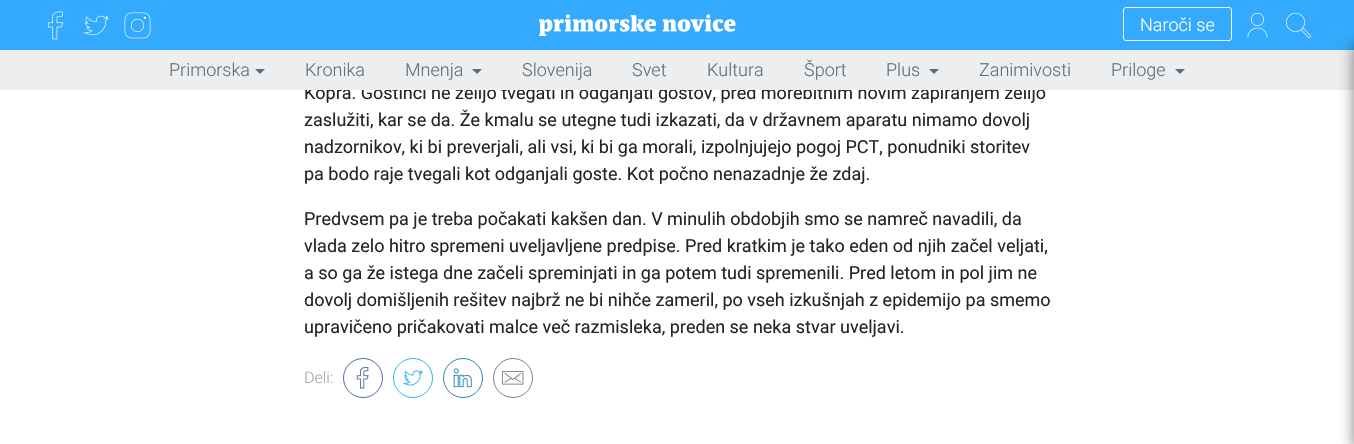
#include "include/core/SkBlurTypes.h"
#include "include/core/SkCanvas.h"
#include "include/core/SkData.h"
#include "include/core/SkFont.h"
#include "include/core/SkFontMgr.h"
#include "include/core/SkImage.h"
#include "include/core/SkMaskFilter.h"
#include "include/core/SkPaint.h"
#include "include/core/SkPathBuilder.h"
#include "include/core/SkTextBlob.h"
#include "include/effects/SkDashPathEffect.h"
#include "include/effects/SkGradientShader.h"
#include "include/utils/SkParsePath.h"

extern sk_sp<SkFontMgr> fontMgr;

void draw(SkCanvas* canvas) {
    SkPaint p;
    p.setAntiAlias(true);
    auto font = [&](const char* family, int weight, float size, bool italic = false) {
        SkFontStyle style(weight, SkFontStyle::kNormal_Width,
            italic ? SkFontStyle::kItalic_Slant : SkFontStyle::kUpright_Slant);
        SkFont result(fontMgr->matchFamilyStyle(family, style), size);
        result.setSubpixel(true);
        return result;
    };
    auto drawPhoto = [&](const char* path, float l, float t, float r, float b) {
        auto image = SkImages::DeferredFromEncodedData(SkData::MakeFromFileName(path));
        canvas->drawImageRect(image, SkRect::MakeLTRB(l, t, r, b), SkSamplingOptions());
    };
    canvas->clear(0xFFFFFFFF);
    p.setColor(0xFF33AAFD);
    canvas->drawRect(SkRect::MakeLTRB(0, 0, 1354, 50), p);
    drawPhoto("media/1.png", 47, 11, 64, 40);
    drawPhoto("media/2.png", 83, 15, 109, 36);
    drawPhoto("media/3.png", 124, 12, 151, 39);
    drawPhoto("media/4.png", 539, 14, 736, 36);
    p.setStyle(SkPaint::kStroke_Style);
    p.setStrokeWidth(1);
    p.setColor(0xFFFFFFFF);
    canvas->drawRoundRect(SkRect::MakeLTRB(1123.5f, 7.5f, 1231.5f, 40.5f), 2.5f, 2.5f, p);
    auto font1 = font("Roboto", 300, 18);
    p.setStyle(SkPaint::kFill_Style);
    canvas->drawString("Naroči se", 1140, 31, font1, p);
    drawPhoto("media/5.png", 1247, 12, 1268, 38);
    drawPhoto("media/6.png", 1286, 12, 1311, 38);
    auto font2 = font("Roboto", 400, 18);
    p.setColor(0xFF212529);
    canvas->drawString("Kopra. Gostinci ne želijo tvegati in odganjati gostov, pred morebitnim novim zapiranjem želijo", 304, 99, font2, p);
    p.setColor(0xFFECEEEF);
    canvas->drawRect(SkRect::MakeLTRB(0, 50, 1354, 90), p);
    p.setColor(0xFF636C72);
    canvas->drawString("Primorska", 169, 76, font1, p);
    canvas->drawPath(SkPathBuilder().moveTo(255, 69).lineTo(265, 69).lineTo(260, 74).close().detach(), p);
    canvas->drawString("Kronika", 305, 76, font1, p);
    canvas->drawString("Mnenja", 405, 76, font1, p);
    canvas->drawPath(SkPathBuilder().moveTo(472, 69).lineTo(482, 69).lineTo(477, 74).close().detach(), p);
    {
        const struct { const char* s; float x, y; } items[] = {
            {"Slovenija", 522, 76},
            {"Svet", 632, 76},
            {"Kultura", 707, 76},
            {"Šport", 804, 76},
            {"Plus", 886, 76},
        };
        for (auto [s, x, y] : items) {
            canvas->drawString(s, x, y, font1, p);
        }
    }
    canvas->drawPath(SkPathBuilder().moveTo(929, 69).lineTo(939, 69).lineTo(934, 74).close().detach(), p);
    canvas->drawString("Zanimivosti", 979, 76, font1, p);
    canvas->drawString("Priloge", 1111, 76, font1, p);
    canvas->drawPath(SkPathBuilder().moveTo(1175, 69).lineTo(1185, 69).lineTo(1180, 74).close().detach(), p);
    p.setColor(0x80000000);
    p.setMaskFilter(SkMaskFilter::MakeBlur(kNormal_SkBlurStyle, 7.5f));
    canvas->drawRect(SkRect::MakeLTRB(1354, 45, 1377, 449), p);
    p.setMaskFilter(nullptr);
    p.setColor(0xFF212529);
    {
        const struct { const char* s; float x, y; } items[] = {
            {"zaslužiti, kar se da. Že kmalu se utegne tudi izkazati, da v državnem aparatu nimamo dovolj", 304, 126},
            {"nadzornikov, ki bi preverjali, ali vsi, ki bi ga morali, izpolnjujejo pogoj PCT, ponudniki storitev", 304, 153},
            {"pa bodo raje tvegali kot odganjali goste. Kot počno nenazadnje že zdaj.", 304, 180},
            {"Predvsem pa je treba počakati kakšen dan. V minulih obdobjih smo se namreč navadili, da", 304, 225},
            {"vlada zelo hitro spremeni uveljavljene predpise. Pred kratkim je tako eden od njih začel veljati,", 304, 252},
            {"a so ga že istega dne začeli spreminjati in ga potem tudi spremenili. Pred letom in pol jim ne", 304, 279},
            {"dovolj domišljenih rešitev najbrž ne bi nihče zameril, po vseh izkušnjah z epidemijo pa smemo", 304, 306},
            {"upravičeno pričakovati malce več razmisleka, preden se neka stvar uveljavi.", 304, 333},
        };
        for (auto [s, x, y] : items) {
            canvas->drawString(s, x, y, font2, p);
        }
    }
    auto font3 = font("Roboto", 300, 16);
    p.setColor(0xFFA0ABAF);
    canvas->drawString("Deli:", 304, 383, font3, p);
    p.setStyle(SkPaint::kStroke_Style);
    p.setColor(0xFF526DA4);
    canvas->drawCircle(363, 378, 19.5f, p);
    drawPhoto("media/7.png", 356, 367, 369, 389);
    p.setColor(0xFF30B7EF);
    canvas->drawCircle(413, 378, 19.5f, p);
    drawPhoto("media/8.png", 402, 370, 424, 386);
    p.setColor(0xFF2B84AD);
    canvas->drawCircle(463, 378, 19.5f, p);
    drawPhoto("media/9.png", 453, 368, 472, 388);
    p.setColor(0xFF808080);
    canvas->drawCircle(513, 378, 19.5f, p);
    drawPhoto("media/10.png", 501, 370, 524, 385);
}
